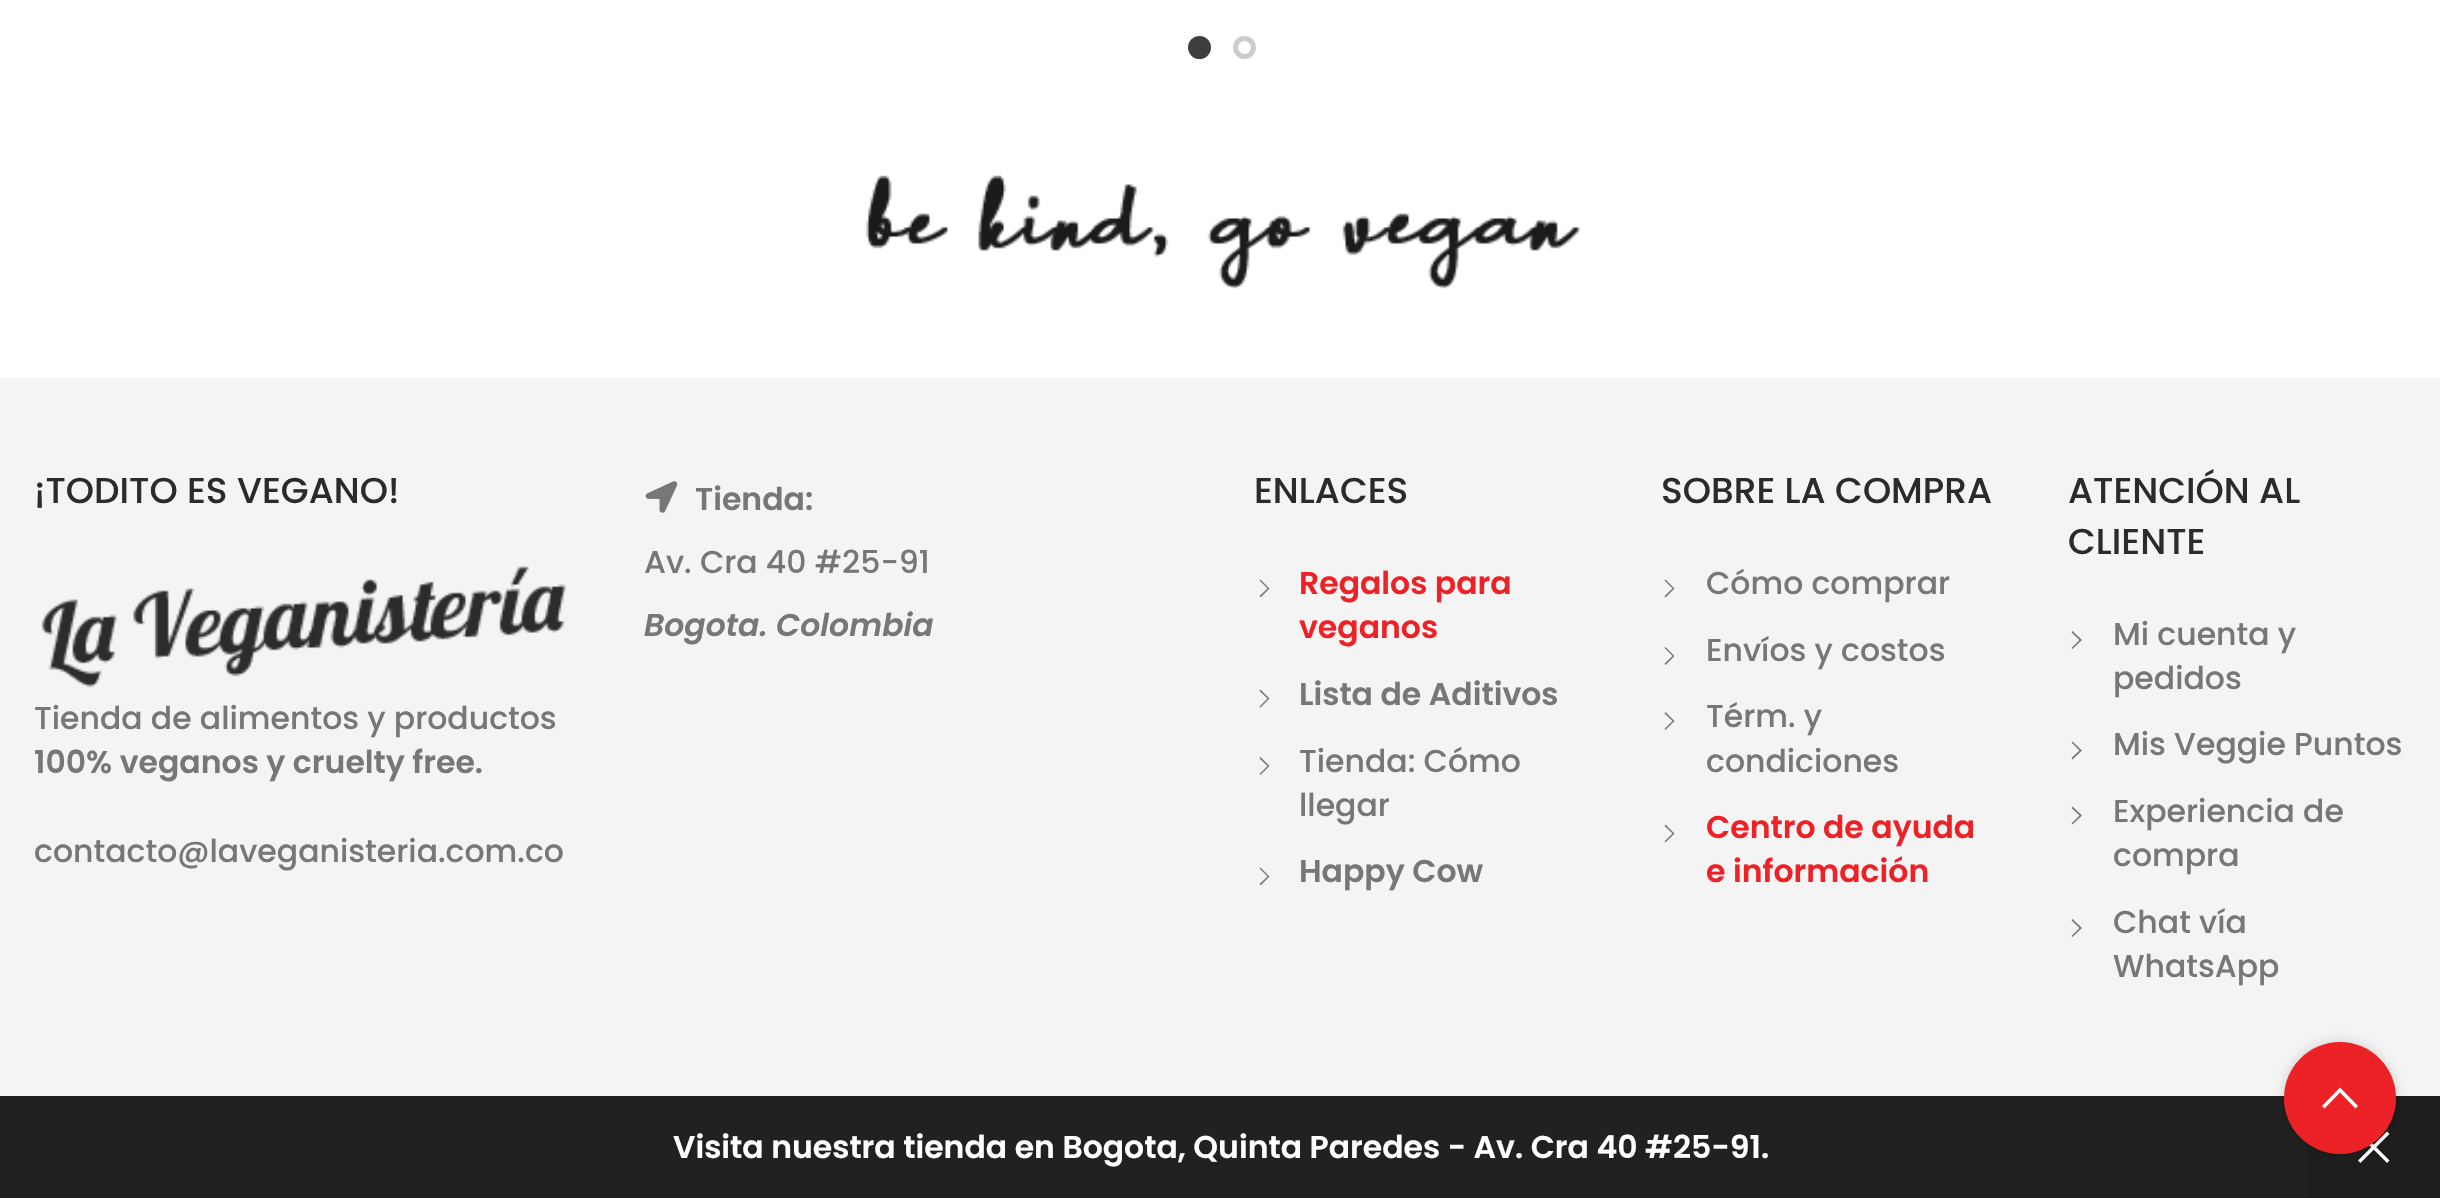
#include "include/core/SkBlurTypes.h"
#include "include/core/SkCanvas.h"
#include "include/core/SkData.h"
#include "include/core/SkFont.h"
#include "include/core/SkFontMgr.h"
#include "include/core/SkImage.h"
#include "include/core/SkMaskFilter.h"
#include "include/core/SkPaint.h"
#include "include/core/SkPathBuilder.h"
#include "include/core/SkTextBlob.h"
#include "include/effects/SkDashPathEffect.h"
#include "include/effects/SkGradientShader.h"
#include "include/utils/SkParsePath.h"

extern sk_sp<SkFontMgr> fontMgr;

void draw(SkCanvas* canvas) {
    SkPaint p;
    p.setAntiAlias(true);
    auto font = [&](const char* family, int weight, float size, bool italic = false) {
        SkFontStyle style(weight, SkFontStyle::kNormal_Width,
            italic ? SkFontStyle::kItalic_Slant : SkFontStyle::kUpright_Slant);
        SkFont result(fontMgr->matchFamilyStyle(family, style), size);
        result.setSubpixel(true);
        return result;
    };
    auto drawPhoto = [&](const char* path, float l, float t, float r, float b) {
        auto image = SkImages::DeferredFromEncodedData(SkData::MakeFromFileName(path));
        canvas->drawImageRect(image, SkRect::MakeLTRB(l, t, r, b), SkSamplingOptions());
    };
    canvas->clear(0xFFFFFFFF);
    p.setColor(0xFF3E3E3E);
    canvas->drawCircle(1199.5f, 47.5f, 9, p);
    p.setStyle(SkPaint::kStroke_Style);
    p.setStrokeWidth(5);
    canvas->drawCircle(1199.5f, 47.5f, 9, p);
    p.setColor(0xFFCCCCCC);
    canvas->drawCircle(1244.5f, 47.5f, 9, p);
    drawPhoto("media/1.png", 865, 175, 1580, 289);
    p.setStyle(SkPaint::kFill_Style);
    p.setColor(0xFFF4F4F4);
    canvas->drawRect(SkRect::MakeLTRB(0, 378, 2440, 1096), p);
    auto font1 = font("Poppins", 500, 36);
    p.setColor(0xFF2D2A2A);
    canvas->drawString("¡TODITO ES VEGANO!", 34, 503, font1, p);
    drawPhoto("media/2.png", 41, 566, 566, 688);
    auto font2 = font("Poppins", 500, 31.5f);
    p.setColor(0xFF777777);
    canvas->drawString("Tienda de alimentos y productos", 34, 729, font2, p);
    auto font3 = font("Poppins", 600, 31.5f);
    canvas->drawString("100% veganos y cruelty free.", 34, 773, font3, p);
    canvas->drawString("contacto@laveganisteria.com.co", 34, 862, font2, p);
    drawPhoto("media/3.png", 645, 481, 678, 513);
    canvas->drawString("Tienda:", 695, 510, font3, p);
    canvas->drawString("Av. Cra 40 #25-91", 644, 573, font2, p);
    auto font4 = font("Poppins", 600, 31.5f, true);
    canvas->drawString("Bogota. Colombia", 644, 636, font4, p);
    p.setColor(0xFF2D2A2A);
    canvas->drawString("ENLACES", 1254, 503, font1, p);
    p.setColor(0xFF777777);
    canvas->drawPath(SkPathBuilder().moveTo(1260.5f, 579.5f).lineTo(1269.5f, 588.5f).lineTo(1260.5f, 597.5f).lineTo(1259.5f, 596).lineTo(1267.5f, 588.5f).lineTo(1259.5f, 580.5f).close().detach(), p);
    p.setColor(0xFFEC2227);
    canvas->drawString("Regalos para", 1299, 594, font3, p);
    canvas->drawString("veganos", 1299, 638, font3, p);
    p.setColor(0xFF777777);
    canvas->drawPath(SkPathBuilder().moveTo(1260.5f, 689.5f).lineTo(1269.5f, 698.5f).lineTo(1260.5f, 707.5f).lineTo(1259.5f, 706.5f).lineTo(1267.5f, 698.5f).lineTo(1259.5f, 691).close().detach(), p);
    canvas->drawString("Lista de Aditivos", 1299, 705, font3, p);
    canvas->drawPath(SkPathBuilder().moveTo(1260.5f, 757).lineTo(1269.5f, 766).lineTo(1260.5f, 775).lineTo(1259.5f, 774).lineTo(1267.5f, 766).lineTo(1259.5f, 758.5f).close().detach(), p);
    canvas->drawString("Tienda: Cómo", 1299, 772, font2, p);
    canvas->drawString("llegar", 1299, 816, font2, p);
    canvas->drawPath(SkPathBuilder().moveTo(1260.5f, 867.5f).lineTo(1269.5f, 876.5f).lineTo(1260.5f, 885.5f).lineTo(1259.5f, 884).lineTo(1267.5f, 876.5f).lineTo(1259.5f, 868.5f).close().detach(), p);
    canvas->drawString("Happy Cow", 1299, 882, font3, p);
    p.setColor(0xFF2D2A2A);
    canvas->drawString("SOBRE LA COMPRA", 1661, 503, font1, p);
    p.setColor(0xFF777777);
    canvas->drawPath(SkPathBuilder().moveTo(1665.5f, 579.5f).lineTo(1674.5f, 588.5f).lineTo(1665.5f, 597.5f).lineTo(1664.5f, 596).lineTo(1672.5f, 588.5f).lineTo(1664.5f, 580.5f).close().detach(), p);
    canvas->drawString("Cómo comprar", 1706, 594, font2, p);
    canvas->drawPath(SkPathBuilder().moveTo(1665.5f, 647).lineTo(1674.5f, 656).lineTo(1665.5f, 665).lineTo(1664.5f, 663.5f).lineTo(1672.5f, 656).lineTo(1664.5f, 648).close().detach(), p);
    canvas->drawString("Envíos y costos", 1706, 661, font2, p);
    canvas->drawPath(SkPathBuilder().moveTo(1665.5f, 712).lineTo(1674.5f, 721).lineTo(1665.5f, 730).lineTo(1664.5f, 729).lineTo(1672.5f, 721).lineTo(1664.5f, 713.5f).close().detach(), p);
    canvas->drawString("Térm. y", 1706, 727, font2, p);
    canvas->drawString("condiciones", 1706, 772, font2, p);
    canvas->drawPath(SkPathBuilder().moveTo(1665.5f, 824.5f).lineTo(1674.5f, 833.5f).lineTo(1665.5f, 842.5f).lineTo(1664.5f, 841.5f).lineTo(1672.5f, 833.5f).lineTo(1664.5f, 826).close().detach(), p);
    p.setColor(0xFFEC2227);
    canvas->drawString("Centro de ayuda", 1706, 838, font3, p);
    canvas->drawString("e información", 1706, 882, font3, p);
    p.setColor(0xFF2D2A2A);
    canvas->drawString("ATENCIÓN AL", 2068, 503, font1, p);
    canvas->drawString("CLIENTE", 2068, 554, font1, p);
    p.setColor(0xFF777777);
    canvas->drawPath(SkPathBuilder().moveTo(2072.5f, 631).lineTo(2082, 640).lineTo(2072.5f, 649).lineTo(2071.5f, 648).lineTo(2079.5f, 640).lineTo(2071.5f, 632.5f).close().detach(), p);
    canvas->drawString("Mi cuenta y", 2113, 645, font2, p);
    canvas->drawString("pedidos", 2113, 689, font2, p);
    canvas->drawPath(SkPathBuilder().moveTo(2072.5f, 741.5f).lineTo(2082, 750.5f).lineTo(2072.5f, 759.5f).lineTo(2071.5f, 758).lineTo(2079.5f, 750.5f).lineTo(2071.5f, 742.5f).close().detach(), p);
    canvas->drawString("Mis Veggie Puntos", 2113, 755, font2, p);
    canvas->drawPath(SkPathBuilder().moveTo(2072.5f, 806.5f).lineTo(2082, 815.5f).lineTo(2072.5f, 824.5f).lineTo(2071.5f, 823.5f).lineTo(2079.5f, 815.5f).lineTo(2071.5f, 808).close().detach(), p);
    canvas->drawString("Experiencia de", 2113, 822, font2, p);
    canvas->drawString("compra", 2113, 866, font2, p);
    canvas->drawPath(SkPathBuilder().moveTo(2072.5f, 919).lineTo(2082, 928).lineTo(2072.5f, 937).lineTo(2071.5f, 936).lineTo(2079.5f, 928).lineTo(2071.5f, 920.5f).close().detach(), p);
    canvas->drawString("Chat vía", 2113, 933, font2, p);
    canvas->drawString("WhatsApp", 2113, 977, font2, p);
    p.setColor(0xFF212121);
    canvas->drawRect(SkRect::MakeLTRB(0, 1096, 2306, 1198), p);
    p.setColor(0xFFFFFFFF);
    canvas->drawString("Visita nuestra tienda en Bogota, Quinta Paredes - Av. Cra 40 #25-91.", 673, 1158, font3, p);
    p.setColor(0xFF1E1E1E);
    canvas->drawRect(SkRect::MakeLTRB(2306, 1096, 2440, 1198), p);
    drawPhoto("media/4.png", 2358, 1131, 2390, 1163);
    p.setColor(0x2B000000);
    p.setMaskFilter(SkMaskFilter::MakeBlur(kNormal_SkBlurStyle, 5.5f));
    canvas->drawRoundRect(SkRect::MakeLTRB(2284, 1042, 2396, 1154), 56, 56, p);
    p.setMaskFilter(nullptr);
    p.setColor(0xFFEC2227);
    canvas->drawCircle(2340, 1098, 56, p);
    p.setColor(0xFFFFFFFF);
    canvas->drawPath(SkPathBuilder().moveTo(2340, 1087.5f).lineTo(2358, 1106).lineTo(2355.5f, 1108.5f).lineTo(2340, 1092.5f).lineTo(2324.5f, 1108.5f).lineTo(2322, 1106).close().detach(), p);
}
